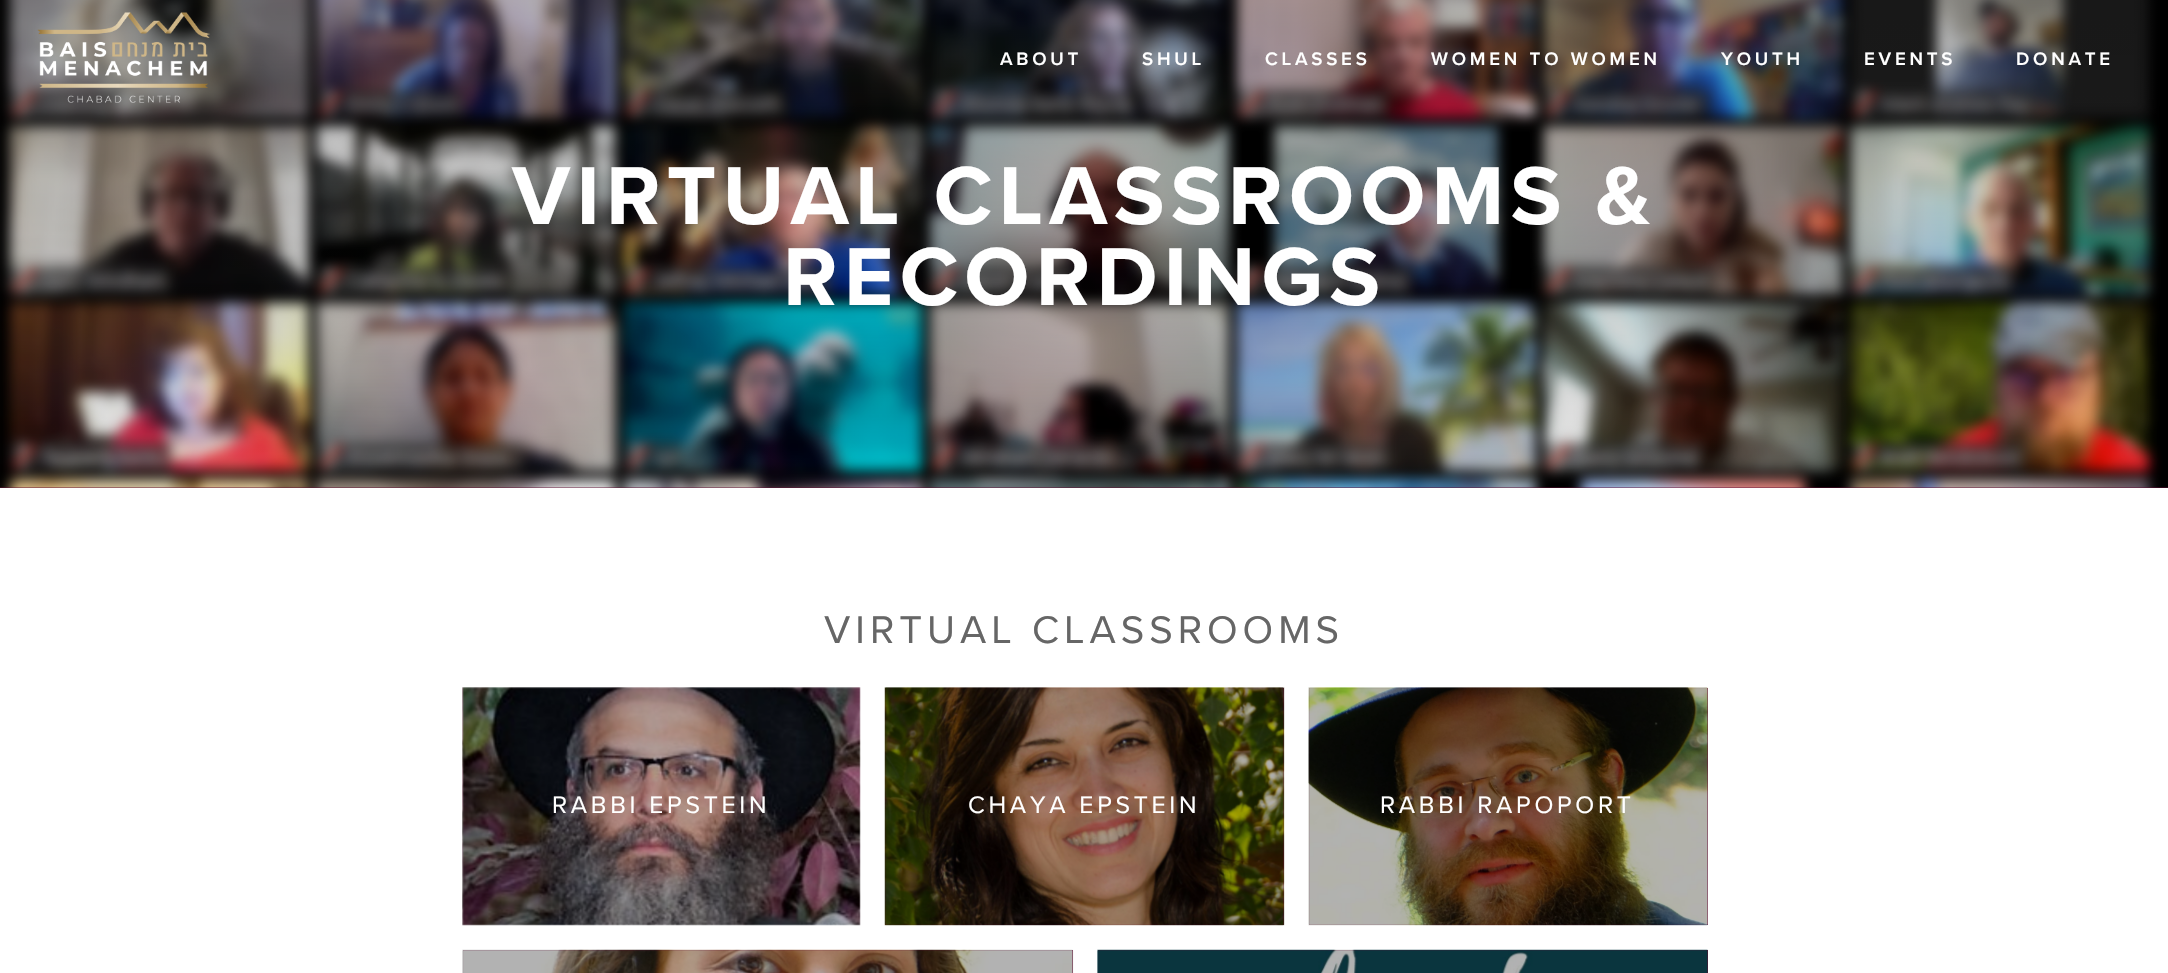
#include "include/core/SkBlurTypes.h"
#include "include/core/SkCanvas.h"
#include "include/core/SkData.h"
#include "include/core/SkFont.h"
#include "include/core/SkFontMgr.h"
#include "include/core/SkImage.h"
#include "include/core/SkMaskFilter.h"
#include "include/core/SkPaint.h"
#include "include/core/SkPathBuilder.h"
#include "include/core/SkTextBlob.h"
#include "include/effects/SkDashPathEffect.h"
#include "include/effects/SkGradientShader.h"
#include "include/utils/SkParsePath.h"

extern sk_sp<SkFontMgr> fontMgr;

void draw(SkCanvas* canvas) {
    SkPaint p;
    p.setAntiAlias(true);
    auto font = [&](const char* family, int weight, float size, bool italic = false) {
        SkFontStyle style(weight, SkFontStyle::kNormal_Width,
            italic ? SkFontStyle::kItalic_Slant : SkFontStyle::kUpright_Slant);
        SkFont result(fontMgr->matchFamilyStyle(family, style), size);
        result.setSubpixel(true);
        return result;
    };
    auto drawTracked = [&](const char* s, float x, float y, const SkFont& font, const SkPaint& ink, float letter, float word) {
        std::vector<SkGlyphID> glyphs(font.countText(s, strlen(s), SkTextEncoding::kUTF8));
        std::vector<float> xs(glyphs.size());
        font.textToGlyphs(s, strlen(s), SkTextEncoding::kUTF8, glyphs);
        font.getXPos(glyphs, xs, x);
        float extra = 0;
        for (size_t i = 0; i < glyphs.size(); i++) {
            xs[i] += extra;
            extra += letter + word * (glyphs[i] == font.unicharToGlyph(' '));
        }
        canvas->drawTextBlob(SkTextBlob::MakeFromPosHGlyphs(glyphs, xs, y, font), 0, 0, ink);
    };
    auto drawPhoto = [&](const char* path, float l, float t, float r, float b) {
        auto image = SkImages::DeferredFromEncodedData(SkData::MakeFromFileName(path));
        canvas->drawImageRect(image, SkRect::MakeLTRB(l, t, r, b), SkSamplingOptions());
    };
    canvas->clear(0xFFFFFFFF);
    p.setColor(0xFF5D0B30);
    canvas->drawRect(SkRect::MakeLTRB(0, 487, 2168, 488), p);
    drawPhoto("media/1.png", 0, 0, 2168, 488);
    drawPhoto("media/2.png", 37, 12, 210, 103);
    auto font1 = font("Proxima Nova", 600, 18.75f);
    p.setColor(0xFFFFFFFF);
    {
        const struct { const char* s; float x, y; } items[] = {
            {"ABOUT", 1000, 65},
            {"SHUL", 1142, 65},
            {"CLASSES", 1265, 65},
            {"WOMEN TO WOMEN", 1431, 65},
            {"YOUTH", 1721, 65},
            {"EVENTS", 1864, 65},
            {"DONATE", 2016, 65},
        };
        for (auto [s, x, y] : items) {
            drawTracked(s, x, y, font1, p, 3.75f, 0);
        }
    }
    auto font2 = font("Proxima Nova", 700, 85);
    drawTracked("VIRTUAL CLASSROOMS &", 512, 224, font2, p, 6.25f, 0);
    drawTracked("RECORDINGS", 783, 305, font2, p, 6.25f, 0);
    auto font3 = font("Proxima Nova", 400, 40);
    p.setColor(0xFF666666);
    drawTracked("VIRTUAL CLASSROOMS", 824, 643, font3, p, 5, 0);
    drawPhoto("media/3.png", 462, 687, 861, 926);
    auto font4 = font("Proxima Nova", 400, 24.75f);
    p.setColor(0xFFFFFFFF);
    drawTracked("RABBI EPSTEIN", 552, 813, font4, p, 3.75f, 0);
    p.setColor(0xFF5D0B30);
    canvas->drawRect(SkRect::MakeLTRB(885, 688, 1284, 925), p);
    drawPhoto("media/4.png", 884, 687, 1285, 926);
    p.setColor(0xFFFFFFFF);
    drawTracked("CHAYA EPSTEIN", 968, 813, font4, p, 3.75f, 0);
    p.setColor(0xFF5D0B30);
    canvas->drawRect(SkRect::MakeLTRB(1309, 688, 1708, 925), p);
    drawPhoto("media/5.png", 1308, 687, 1708, 926);
    p.setColor(0xFFFFFFFF);
    drawTracked("RABBI RAPOPORT", 1380, 813, font4, p, 3.75f, 0);
    p.setColor(0xFF5D0B30);
    canvas->drawRect(SkRect::MakeLTRB(463, 950, 1073, 973), p);
    drawPhoto("media/6.png", 462, 949, 1074, 973);
    canvas->drawRect(SkRect::MakeLTRB(1098, 950, 1708, 973), p);
    drawPhoto("media/7.png", 1097, 949, 1708, 973);
}
